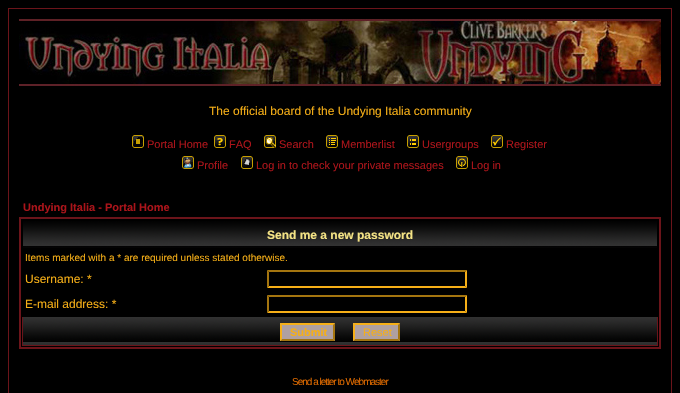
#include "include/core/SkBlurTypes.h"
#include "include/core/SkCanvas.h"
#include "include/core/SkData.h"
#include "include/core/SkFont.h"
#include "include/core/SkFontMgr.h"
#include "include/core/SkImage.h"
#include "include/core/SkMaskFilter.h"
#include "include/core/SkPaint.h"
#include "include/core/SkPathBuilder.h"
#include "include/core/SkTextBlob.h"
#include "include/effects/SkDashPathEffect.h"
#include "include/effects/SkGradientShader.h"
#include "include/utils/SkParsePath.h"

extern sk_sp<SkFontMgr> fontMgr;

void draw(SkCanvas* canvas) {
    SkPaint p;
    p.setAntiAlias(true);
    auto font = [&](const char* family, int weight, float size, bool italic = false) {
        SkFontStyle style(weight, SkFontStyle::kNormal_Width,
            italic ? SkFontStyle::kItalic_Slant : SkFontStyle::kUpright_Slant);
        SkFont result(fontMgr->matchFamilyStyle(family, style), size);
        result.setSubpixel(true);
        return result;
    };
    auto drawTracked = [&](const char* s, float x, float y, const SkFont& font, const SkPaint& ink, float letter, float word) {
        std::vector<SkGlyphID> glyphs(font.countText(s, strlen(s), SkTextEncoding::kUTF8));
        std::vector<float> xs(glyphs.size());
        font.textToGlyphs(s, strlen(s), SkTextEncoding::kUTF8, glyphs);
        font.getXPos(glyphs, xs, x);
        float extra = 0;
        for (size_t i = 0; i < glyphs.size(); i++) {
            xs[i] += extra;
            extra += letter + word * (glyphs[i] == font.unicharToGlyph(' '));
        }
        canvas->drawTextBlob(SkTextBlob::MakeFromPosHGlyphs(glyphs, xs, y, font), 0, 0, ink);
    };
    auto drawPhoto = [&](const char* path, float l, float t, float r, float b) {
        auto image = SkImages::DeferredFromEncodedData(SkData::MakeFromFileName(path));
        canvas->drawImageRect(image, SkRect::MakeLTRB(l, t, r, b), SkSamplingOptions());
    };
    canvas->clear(0xFF000000);
    p.setStyle(SkPaint::kStroke_Style);
    p.setStrokeWidth(1);
    p.setColor(0xFF6B141A);
    canvas->drawRect(SkRect::MakeLTRB(8.5f, 8.5f, 671.5f, 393.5f), p);
    drawPhoto("media/1.png", 19, 19, 661, 86);
    auto font1 = font("Liberation Sans", 400, 12);
    p.setStyle(SkPaint::kFill_Style);
    p.setColor(0xFFF6AF17);
    canvas->drawString("The official board of the Undying Italia community", 209, 115, font1, p);
    drawPhoto("media/2.png", 132, 135, 144, 148);
    auto font2 = font("Liberation Sans", 400, 11);
    p.setColor(0xFFAB141A);
    canvas->drawString("Portal Home", 147, 148, font2, p);
    drawPhoto("media/3.png", 214, 135, 226, 148);
    canvas->drawString("FAQ", 229, 148, font2, p);
    drawPhoto("media/4.png", 264, 135, 276, 148);
    canvas->drawString("Search", 279, 148, font2, p);
    drawPhoto("media/5.png", 326, 135, 338, 148);
    canvas->drawString("Memberlist", 341, 148, font2, p);
    drawPhoto("media/6.png", 407, 135, 419, 148);
    canvas->drawString("Usergroups", 422, 148, font2, p);
    drawPhoto("media/7.png", 491, 135, 503, 148);
    canvas->drawString("Register", 506, 148, font2, p);
    drawPhoto("media/8.png", 182, 156, 194, 169);
    canvas->drawString("Profile", 197, 169, font2, p);
    drawPhoto("media/9.png", 241, 156, 253, 169);
    canvas->drawString("Log in to check your private messages", 256, 169, font2, p);
    drawPhoto("media/10.png", 456, 156, 468, 169);
    canvas->drawString("Log in", 471, 169, font2, p);
    auto font3 = font("Liberation Sans", 700, 11);
    canvas->drawString("Undying Italia - Portal Home", 23, 211, font3, p);
    p.setStyle(SkPaint::kStroke_Style);
    p.setStrokeWidth(2);
    p.setColor(0xFF6B141A);
    canvas->drawRect(SkRect::MakeLTRB(20, 218, 660, 348), p);
    drawPhoto("media/11.png", 23, 221, 657, 248);
    auto font4 = font("Liberation Sans", 700, 12);
    p.setStyle(SkPaint::kFill_Style);
    p.setColor(0xFFF4E385);
    canvas->drawString("Send me a new password", 267, 239, font4, p);
    auto font5 = font("Liberation Sans", 400, 10);
    p.setColor(0xFFF6AF17);
    canvas->drawString("Items marked with a * are required unless stated otherwise.", 25, 261, font5, p);
    canvas->drawString("Username: *", 25, 283, font1, p);
    p.setColor(0xFFA4750F);
    canvas->drawPath(SkPathBuilder().moveTo(267, 270).lineTo(467, 270).lineTo(465, 272).lineTo(269, 272).close().detach(), p);
    p.setColor(0xFFF6AF17);
    canvas->drawPath(SkPathBuilder().moveTo(467, 270).lineTo(467, 288).lineTo(465, 286).lineTo(465, 272).close().detach(), p);
    canvas->drawPath(SkPathBuilder().moveTo(467, 288).lineTo(267, 288).lineTo(269, 286).lineTo(465, 286).close().detach(), p);
    p.setColor(0xFFA4750F);
    canvas->drawPath(SkPathBuilder().moveTo(267, 288).lineTo(267, 270).lineTo(269, 272).lineTo(269, 286).close().detach(), p);
    p.setColor(0xFFF6AF17);
    canvas->drawString("E-mail address: *", 25, 308, font1, p);
    p.setColor(0xFFA4750F);
    canvas->drawPath(SkPathBuilder().moveTo(267, 295).lineTo(467, 295).lineTo(465, 297).lineTo(269, 297).close().detach(), p);
    p.setColor(0xFFF6AF17);
    canvas->drawPath(SkPathBuilder().moveTo(467, 295).lineTo(467, 313).lineTo(465, 311).lineTo(465, 297).close().detach(), p);
    canvas->drawPath(SkPathBuilder().moveTo(467, 313).lineTo(267, 313).lineTo(269, 311).lineTo(465, 311).close().detach(), p);
    p.setColor(0xFFA4750F);
    canvas->drawPath(SkPathBuilder().moveTo(267, 313).lineTo(267, 295).lineTo(269, 297).lineTo(269, 311).close().detach(), p);
    drawPhoto("media/12.png", 23, 317, 657, 345);
    {
        const struct { float l, t, r, b; SkColor color; } items[] = {
            {657, 317, 658, 346, 0xFF6B141A},
            {22, 345, 658, 346, 0xFF6B141A},
            {22, 317, 23, 346, 0xFF6B141A},
            {280, 323, 335, 341, 0xFFAFA0A0},
        };
        for (auto [l, t, r, b, color] : items) {
            p.setColor(color);
            canvas->drawRect(SkRect::MakeLTRB(l, t, r, b), p);
        }
    }
    p.setColor(0xFFF6AF17);
    canvas->drawPath(SkPathBuilder().moveTo(280, 323).lineTo(335, 323).lineTo(333, 325).lineTo(282, 325).close().detach(), p);
    p.setColor(0xFFA4750F);
    canvas->drawPath(SkPathBuilder().moveTo(335, 323).lineTo(335, 341).lineTo(333, 339).lineTo(333, 325).close().detach(), p);
    canvas->drawPath(SkPathBuilder().moveTo(335, 341).lineTo(280, 341).lineTo(282, 339).lineTo(333, 339).close().detach(), p);
    p.setColor(0xFFF6AF17);
    canvas->drawPath(SkPathBuilder().moveTo(280, 341).lineTo(280, 323).lineTo(282, 325).lineTo(282, 339).close().detach(), p);
    canvas->drawString("Submit", 290, 336, font3, p);
    p.setColor(0xFFAFA0A0);
    canvas->drawRect(SkRect::MakeLTRB(353, 323, 400, 341), p);
    p.setColor(0xFFF6AF17);
    canvas->drawPath(SkPathBuilder().moveTo(353, 323).lineTo(400, 323).lineTo(398, 325).lineTo(355, 325).close().detach(), p);
    p.setColor(0xFFA4750F);
    canvas->drawPath(SkPathBuilder().moveTo(400, 323).lineTo(400, 341).lineTo(398, 339).lineTo(398, 325).close().detach(), p);
    canvas->drawPath(SkPathBuilder().moveTo(400, 341).lineTo(353, 341).lineTo(355, 339).lineTo(398, 339).close().detach(), p);
    p.setColor(0xFFF6AF17);
    canvas->drawPath(SkPathBuilder().moveTo(353, 341).lineTo(353, 323).lineTo(355, 325).lineTo(355, 339).close().detach(), p);
    canvas->drawString("Reset", 363, 336, font2, p);
    p.setColor(0xFFDD6900);
    drawTracked("Send a letter to Webmaster", 292, 385, font5, p, -1, 0);
}
